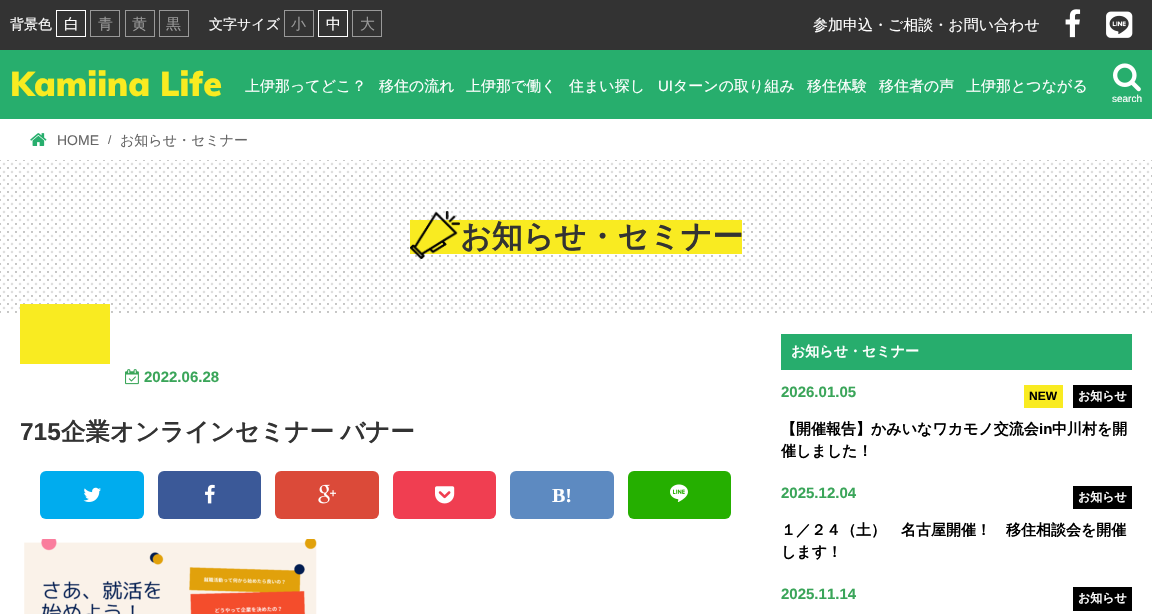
#include "include/core/SkBlurTypes.h"
#include "include/core/SkCanvas.h"
#include "include/core/SkData.h"
#include "include/core/SkFont.h"
#include "include/core/SkFontMgr.h"
#include "include/core/SkImage.h"
#include "include/core/SkMaskFilter.h"
#include "include/core/SkPaint.h"
#include "include/core/SkPathBuilder.h"
#include "include/core/SkTextBlob.h"
#include "include/effects/SkDashPathEffect.h"
#include "include/effects/SkGradientShader.h"
#include "include/utils/SkParsePath.h"

extern sk_sp<SkFontMgr> fontMgr;

void draw(SkCanvas* canvas) {
    SkPaint p;
    p.setAntiAlias(true);
    auto font = [&](const char* family, int weight, float size, bool italic = false) {
        SkFontStyle style(weight, SkFontStyle::kNormal_Width,
            italic ? SkFontStyle::kItalic_Slant : SkFontStyle::kUpright_Slant);
        SkFont result(fontMgr->matchFamilyStyle(family, style), size);
        result.setSubpixel(true);
        return result;
    };
    auto drawTracked = [&](const char* s, float x, float y, const SkFont& font, const SkPaint& ink, float letter, float word) {
        std::vector<SkGlyphID> glyphs(font.countText(s, strlen(s), SkTextEncoding::kUTF8));
        std::vector<float> xs(glyphs.size());
        font.textToGlyphs(s, strlen(s), SkTextEncoding::kUTF8, glyphs);
        font.getXPos(glyphs, xs, x);
        float extra = 0;
        for (size_t i = 0; i < glyphs.size(); i++) {
            xs[i] += extra;
            extra += letter + word * (glyphs[i] == font.unicharToGlyph(' '));
        }
        canvas->drawTextBlob(SkTextBlob::MakeFromPosHGlyphs(glyphs, xs, y, font), 0, 0, ink);
    };
    auto drawPhoto = [&](const char* path, float l, float t, float r, float b) {
        auto image = SkImages::DeferredFromEncodedData(SkData::MakeFromFileName(path));
        canvas->drawImageRect(image, SkRect::MakeLTRB(l, t, r, b), SkSamplingOptions());
    };
    canvas->clear(0xFFFFFFFF);
    p.setColor(0xFF333333);
    canvas->drawRect(SkRect::MakeLTRB(0, 0, 1152, 50), p);
    auto font1 = font("WenQuanYi Zen Hei", 500, 14);
    p.setColor(0xFFFFFFFF);
    canvas->drawString("背景色", 10, 29, font1, p);
    p.setStyle(SkPaint::kStroke_Style);
    p.setStrokeWidth(1);
    canvas->drawRect(SkRect::MakeLTRB(56.5f, 10.5f, 85.5f, 36.5f), p);
    auto font2 = font("WenQuanYi Zen Hei", 500, 15);
    p.setStyle(SkPaint::kFill_Style);
    canvas->drawString("白", 64, 29, font2, p);
    p.setStyle(SkPaint::kStroke_Style);
    p.setColor(0xFF999999);
    canvas->drawRect(SkRect::MakeLTRB(90.5f, 10.5f, 119.5f, 36.5f), p);
    p.setStyle(SkPaint::kFill_Style);
    canvas->drawString("青", 98, 29, font2, p);
    p.setStyle(SkPaint::kStroke_Style);
    canvas->drawRect(SkRect::MakeLTRB(125.5f, 10.5f, 154.5f, 36.5f), p);
    p.setStyle(SkPaint::kFill_Style);
    canvas->drawString("黄", 132, 29, font2, p);
    p.setStyle(SkPaint::kStroke_Style);
    canvas->drawRect(SkRect::MakeLTRB(159.5f, 10.5f, 188.5f, 36.5f), p);
    p.setStyle(SkPaint::kFill_Style);
    canvas->drawString("黒", 166, 29, font2, p);
    p.setColor(0xFFFFFFFF);
    canvas->drawString("文字サイズ", 209, 29, font1, p);
    p.setStyle(SkPaint::kStroke_Style);
    p.setColor(0xFF999999);
    canvas->drawRect(SkRect::MakeLTRB(284.5f, 10.5f, 313.5f, 36.5f), p);
    p.setStyle(SkPaint::kFill_Style);
    canvas->drawString("小", 291, 29, font2, p);
    p.setStyle(SkPaint::kStroke_Style);
    p.setColor(0xFFFFFFFF);
    canvas->drawRect(SkRect::MakeLTRB(318.5f, 10.5f, 347.5f, 36.5f), p);
    p.setStyle(SkPaint::kFill_Style);
    canvas->drawString("中", 326, 29, font2, p);
    p.setStyle(SkPaint::kStroke_Style);
    p.setColor(0xFF999999);
    canvas->drawRect(SkRect::MakeLTRB(352.5f, 10.5f, 381.5f, 36.5f), p);
    p.setStyle(SkPaint::kFill_Style);
    canvas->drawString("大", 360, 29, font2, p);
    p.setColor(0xFFFFFFFF);
    canvas->drawString("参加申込・ご相談・お問い合わせ", 813, 30, font2, p);
    drawPhoto("media/1.png", 1065, 9, 1081, 38);
    drawPhoto("media/2.png", 1106, 11, 1133, 38);
    p.setColor(0xFF27AE6D);
    canvas->drawRect(SkRect::MakeLTRB(0, 50, 1152, 119), p);
    auto font3 = font("Muli", 900, 34);
    p.setColor(0xFFF9EB21);
    canvas->drawString("Kamiina Life", 10, 96, font3, p);
    p.setColor(0xFFFFFFFF);
    {
        const struct { const char* s; float x, y; } items[] = {
            {"上伊那ってどこ？", 245, 91},
            {"移住の流れ", 379, 91},
            {"上伊那で働く", 466, 91},
            {"住まい探し", 569, 91},
        };
        for (auto [s, x, y] : items) {
            canvas->drawString(s, x, y, font2, p);
        }
    }
    auto font4 = font("Liberation Sans", 400, 15);
    canvas->drawString("UI", 658, 91, font4, p);
    {
        const struct { const char* s; float x, y; } items[] = {
            {"ターンの取り組み", 673, 91},
            {"移住体験", 807, 91},
            {"移住者の声", 879, 91},
            {"上伊那とつながる", 966, 91},
        };
        for (auto [s, x, y] : items) {
            canvas->drawString(s, x, y, font2, p);
        }
    }
    drawPhoto("media/3.png", 1113, 63, 1141, 92);
    auto font5 = font("Liberation Sans", 400, 10);
    canvas->drawString("search", 1112, 102, font5, p);
    drawPhoto("media/4.png", 30, 133, 47, 146);
    auto font6 = font("Liberation Sans", 400, 14);
    p.setColor(0xFF666666);
    canvas->drawString("HOME", 57, 145, font6, p);
    auto font7 = font("Liberation Sans", 400, 12);
    canvas->drawString("/", 108, 144, font7, p);
    canvas->drawString("お知らせ・セミナー", 120, 145, font1, p);
    drawPhoto("media/5.png", 0, 160, 1152, 313);
    p.setColor(0xFFF9EB21);
    canvas->drawRect(SkRect::MakeLTRB(410, 220, 742, 254), p);
    drawPhoto("media/6.png", 410, 211, 460, 259);
    auto font8 = font("WenQuanYi Zen Hei", 700, 31);
    p.setColor(0xFF333333);
    canvas->drawString("お知らせ・セミナー", 460, 247, font8, p);
    p.setColor(0xFFF9EB21);
    canvas->drawRect(SkRect::MakeLTRB(20, 304, 110, 364), p);
    drawPhoto("media/7.png", 125, 369, 139, 385);
    auto font9 = font("Liberation Sans", 700, 15);
    p.setColor(0xFF3AA559);
    canvas->drawString("2022.06.28", 144, 382, font9, p);
    auto font10 = font("Liberation Sans", 700, 24.4f);
    p.setColor(0xFF333333);
    canvas->drawString("715", 20, 440, font10, p);
    auto font11 = font("WenQuanYi Zen Hei", 700, 24.4f);
    drawTracked("企業オンラインセミナー バナー", 61, 440, font11, p, 0, -1);
    p.setColor(0xFF00ACEE);
    canvas->drawRoundRect(SkRect::MakeLTRB(40, 471, 144, 519), 6, 6, p);
    drawPhoto("media/8.png", 83, 487, 101, 502);
    p.setColor(0xFF3B5998);
    canvas->drawRoundRect(SkRect::MakeLTRB(158, 471, 261, 519), 6, 6, p);
    drawPhoto("media/9.png", 205, 484, 215, 504);
    p.setColor(0xFFDB4A39);
    canvas->drawRoundRect(SkRect::MakeLTRB(275, 471, 379, 519), 6, 6, p);
    drawPhoto("media/10.png", 318, 484, 336, 504);
    p.setColor(0xFFF03E51);
    canvas->drawRoundRect(SkRect::MakeLTRB(393, 471, 496, 519), 6, 6, p);
    drawPhoto("media/11.png", 435, 486, 455, 504);
    p.setColor(0xFF5D8AC1);
    canvas->drawRoundRect(SkRect::MakeLTRB(510, 471, 614, 519), 6, 6, p);
    auto font12 = font("Liberation Serif", 700, 20);
    p.setColor(0xFFFFFFFF);
    canvas->drawString("B!", 552, 502, font12, p);
    p.setColor(0xFF25AF00);
    canvas->drawRoundRect(SkRect::MakeLTRB(628, 471, 731, 519), 6, 6, p);
    drawPhoto("media/12.png", 670, 484, 688, 502);
    drawPhoto("media/13.png", 24, 539, 317, 614);
    p.setColor(0xFF27AD6D);
    canvas->drawRect(SkRect::MakeLTRB(781, 334, 1132, 370), p);
    auto font13 = font("WenQuanYi Zen Hei", 700, 14);
    p.setColor(0xFFFFFFFF);
    canvas->drawString("お知らせ・セミナー", 791, 356, font13, p);
    p.setColor(0xFF3AA559);
    canvas->drawString("2026.01.05", 781, 397, font9, p);
    p.setColor(0xFFF9EB21);
    canvas->drawRect(SkRect::MakeLTRB(1024, 385, 1063, 408), p);
    auto font14 = font("Liberation Sans", 700, 12);
    p.setColor(0xFF000000);
    canvas->drawString("NEW", 1029, 400, font14, p);
    canvas->drawRect(SkRect::MakeLTRB(1073, 385, 1132, 408), p);
    auto font15 = font("WenQuanYi Zen Hei", 700, 12);
    p.setColor(0xFFFFFFFF);
    canvas->drawString("お知らせ", 1078, 400, font15, p);
    auto font16 = font("WenQuanYi Zen Hei", 700, 15);
    p.setColor(0xFF000000);
    canvas->drawString("【開催報告】かみいなワカモノ交流会", 781, 434, font16, p);
    canvas->drawString("in", 1039, 434, font9, p);
    canvas->drawString("中川村を開", 1052, 434, font16, p);
    canvas->drawString("催しました！", 781, 456, font16, p);
    p.setColor(0xFF3AA559);
    canvas->drawString("2025.12.04", 781, 498, font9, p);
    p.setColor(0xFF000000);
    canvas->drawRect(SkRect::MakeLTRB(1073, 486, 1132, 509), p);
    p.setColor(0xFFFFFFFF);
    canvas->drawString("お知らせ", 1078, 501, font15, p);
    p.setColor(0xFF000000);
    canvas->drawString("１／２４（土）　名古屋開催！　移住相談会を開催", 781, 535, font16, p);
    canvas->drawString("します！", 781, 557, font16, p);
    p.setColor(0xFF3AA559);
    canvas->drawString("2025.11.14", 781, 599, font9, p);
    p.setColor(0xFF000000);
    canvas->drawRect(SkRect::MakeLTRB(1073, 587, 1132, 611), p);
    p.setColor(0xFFFFFFFF);
    canvas->drawString("お知らせ", 1078, 602, font15, p);
}
